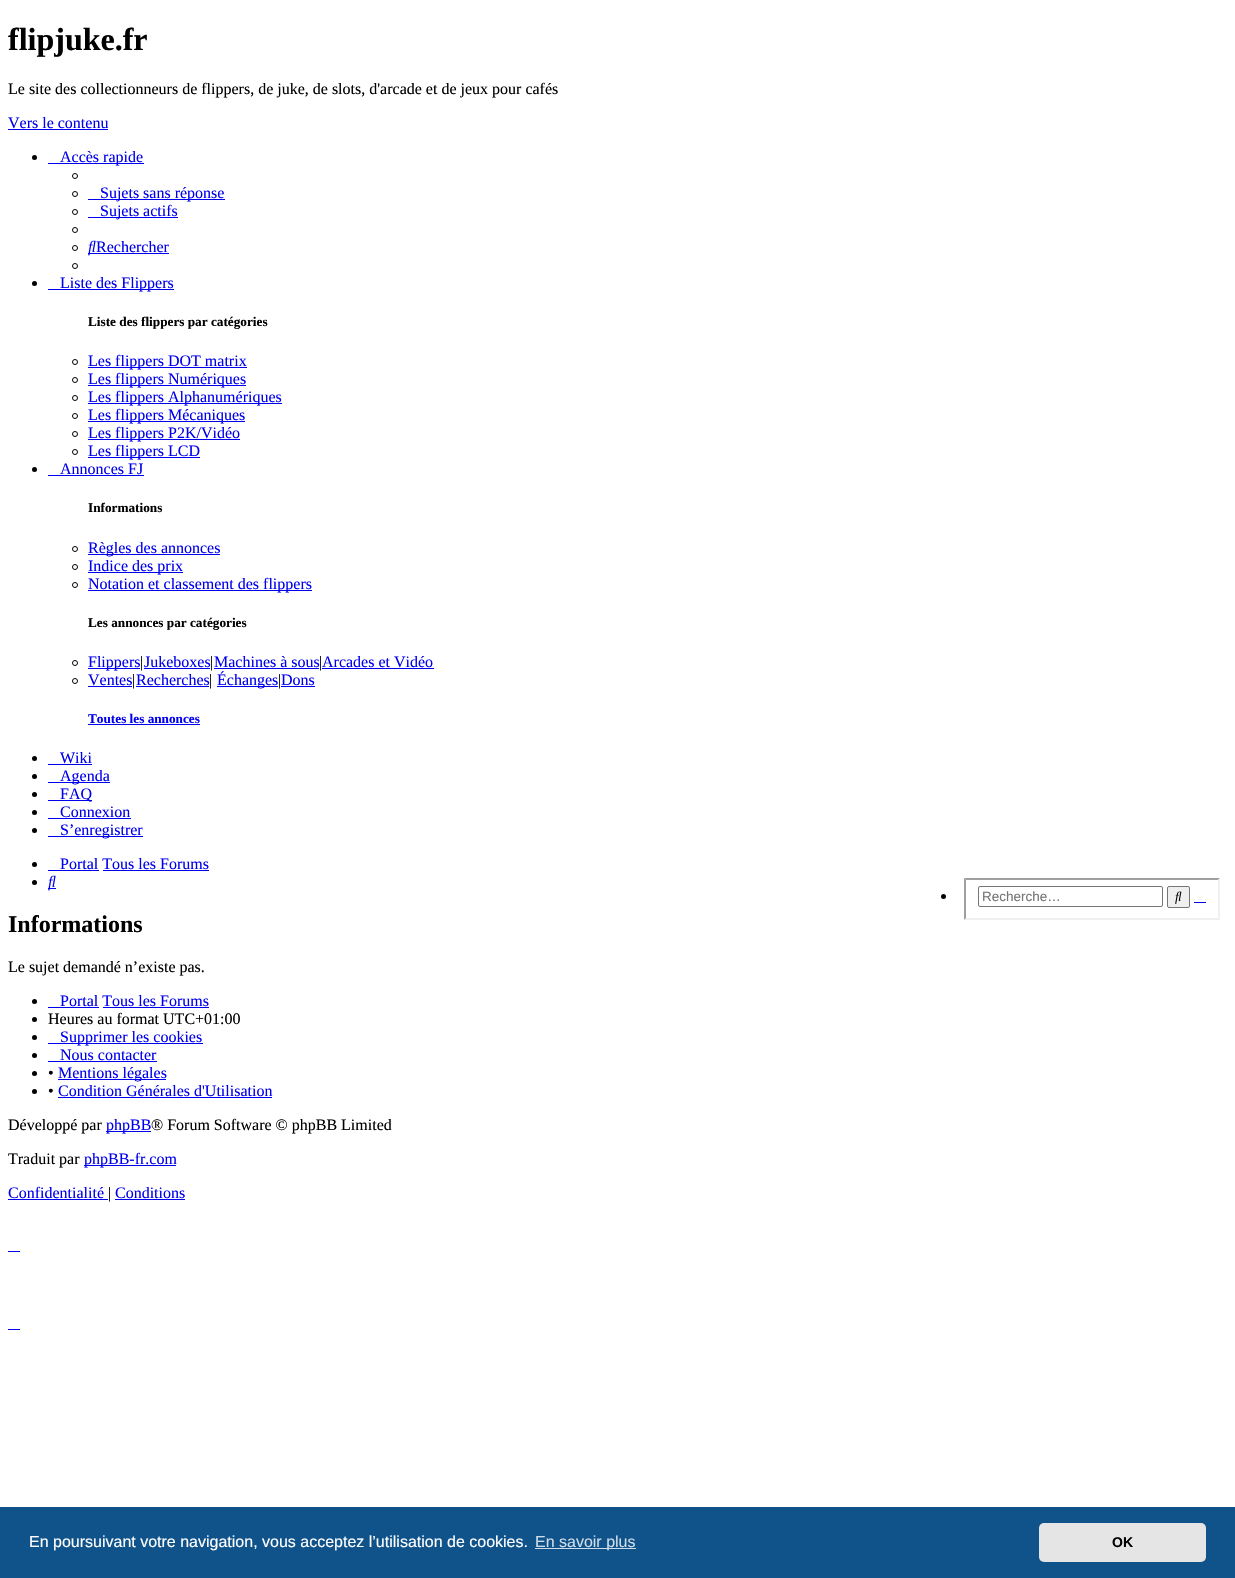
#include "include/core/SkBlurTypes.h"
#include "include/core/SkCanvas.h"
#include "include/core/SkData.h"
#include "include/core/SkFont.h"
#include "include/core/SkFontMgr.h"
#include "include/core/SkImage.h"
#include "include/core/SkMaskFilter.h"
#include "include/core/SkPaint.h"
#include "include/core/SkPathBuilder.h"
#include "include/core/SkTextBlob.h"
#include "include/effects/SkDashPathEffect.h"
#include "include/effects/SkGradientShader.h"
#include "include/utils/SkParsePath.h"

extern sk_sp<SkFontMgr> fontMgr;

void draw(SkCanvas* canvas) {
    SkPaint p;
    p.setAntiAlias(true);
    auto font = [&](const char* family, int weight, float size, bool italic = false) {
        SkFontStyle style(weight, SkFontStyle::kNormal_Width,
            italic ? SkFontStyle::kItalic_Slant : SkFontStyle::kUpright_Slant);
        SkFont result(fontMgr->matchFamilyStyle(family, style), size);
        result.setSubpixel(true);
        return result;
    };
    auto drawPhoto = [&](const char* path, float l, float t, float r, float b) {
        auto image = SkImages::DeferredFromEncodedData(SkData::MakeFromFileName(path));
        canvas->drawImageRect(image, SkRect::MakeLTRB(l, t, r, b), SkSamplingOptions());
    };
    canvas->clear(0xFFFFFFFF);
    auto font1 = font("Liberation Serif", 700, 32);
    p.setColor(0xFF000000);
    canvas->drawString("flipjuke.fr", 8, 50, font1, p);
    auto font2 = font("Liberation Serif", 400, 16);
    canvas->drawString("Le site des collectionneurs de flippers, de juke, de slots, d'arcade et de jeux pour cafés", 8, 94, font2, p);
    p.setColor(0xFF0000EE);
    canvas->drawString("Vers le contenu", 8, 128, font2, p);
    canvas->drawRect(SkRect::MakeLTRB(8, 129, 108, 130), p);
    p.setColor(0xFF000000);
    canvas->drawCircle(34.5f, 157.5f, 2.5f, p);
    p.setColor(0xFF0000EE);
    canvas->drawRect(SkRect::MakeLTRB(48, 163, 144, 164), p);
    canvas->drawString("Accès rapide", 60, 162, font2, p);
    p.setStyle(SkPaint::kStroke_Style);
    p.setStrokeWidth(1);
    p.setColor(0xFF000000);
    canvas->drawCircle(75, 176, 2.5f, p);
    canvas->drawCircle(75, 194, 2.5f, p);
    p.setStyle(SkPaint::kFill_Style);
    p.setColor(0xFF0000EE);
    canvas->drawRect(SkRect::MakeLTRB(88, 199, 225, 200), p);
    canvas->drawString("Sujets sans réponse", 100, 198, font2, p);
    p.setStyle(SkPaint::kStroke_Style);
    p.setColor(0xFF000000);
    canvas->drawCircle(75, 212, 2.5f, p);
    p.setStyle(SkPaint::kFill_Style);
    p.setColor(0xFF0000EE);
    canvas->drawRect(SkRect::MakeLTRB(88, 217, 178, 218), p);
    canvas->drawString("Sujets actifs", 100, 216, font2, p);
    p.setStyle(SkPaint::kStroke_Style);
    p.setColor(0xFF000000);
    canvas->drawCircle(75, 230, 2.5f, p);
    canvas->drawCircle(75, 248, 2.5f, p);
    p.setStyle(SkPaint::kFill_Style);
    p.setColor(0xFF0000EE);
    canvas->drawRect(SkRect::MakeLTRB(88, 253, 169, 254), p);
    drawPhoto("media/1.png", 88, 240, 96, 256);
    canvas->drawString("Rechercher", 96, 252, font2, p);
    p.setStyle(SkPaint::kStroke_Style);
    p.setColor(0xFF000000);
    canvas->drawCircle(75, 266, 2.5f, p);
    p.setStyle(SkPaint::kFill_Style);
    canvas->drawCircle(34.5f, 283.5f, 2.5f, p);
    p.setColor(0xFF0000EE);
    canvas->drawRect(SkRect::MakeLTRB(48, 289, 174, 290), p);
    canvas->drawString("Liste des Flippers", 60, 288, font2, p);
    auto font3 = font("Liberation Serif", 700, 13.25f);
    p.setColor(0xFF000000);
    canvas->drawString("Liste des flippers par catégories", 88, 326, font3, p);
    p.setStyle(SkPaint::kStroke_Style);
    canvas->drawCircle(75, 362, 2.5f, p);
    p.setStyle(SkPaint::kFill_Style);
    p.setColor(0xFF0000EE);
    canvas->drawRect(SkRect::MakeLTRB(88, 367, 247, 368), p);
    canvas->drawString("Les flippers DOT matrix", 88, 366, font2, p);
    p.setStyle(SkPaint::kStroke_Style);
    p.setColor(0xFF000000);
    canvas->drawCircle(75, 380, 2.5f, p);
    p.setStyle(SkPaint::kFill_Style);
    p.setColor(0xFF0000EE);
    canvas->drawRect(SkRect::MakeLTRB(88, 385, 246, 386), p);
    canvas->drawString("Les flippers Numériques", 88, 384, font2, p);
    p.setStyle(SkPaint::kStroke_Style);
    p.setColor(0xFF000000);
    canvas->drawCircle(75, 398, 2.5f, p);
    p.setStyle(SkPaint::kFill_Style);
    p.setColor(0xFF0000EE);
    canvas->drawRect(SkRect::MakeLTRB(88, 403, 282, 404), p);
    canvas->drawString("Les flippers Alphanumériques", 88, 402, font2, p);
    p.setStyle(SkPaint::kStroke_Style);
    p.setColor(0xFF000000);
    canvas->drawCircle(75, 416, 2.5f, p);
    p.setStyle(SkPaint::kFill_Style);
    p.setColor(0xFF0000EE);
    canvas->drawRect(SkRect::MakeLTRB(88, 421, 245, 422), p);
    canvas->drawString("Les flippers Mécaniques", 88, 420, font2, p);
    p.setStyle(SkPaint::kStroke_Style);
    p.setColor(0xFF000000);
    canvas->drawCircle(75, 434, 2.5f, p);
    p.setStyle(SkPaint::kFill_Style);
    p.setColor(0xFF0000EE);
    canvas->drawRect(SkRect::MakeLTRB(88, 439, 240, 440), p);
    canvas->drawString("Les flippers P2K/Vidéo", 88, 438, font2, p);
    p.setStyle(SkPaint::kStroke_Style);
    p.setColor(0xFF000000);
    canvas->drawCircle(75, 452, 2.5f, p);
    p.setStyle(SkPaint::kFill_Style);
    p.setColor(0xFF0000EE);
    canvas->drawRect(SkRect::MakeLTRB(88, 457, 200, 458), p);
    canvas->drawString("Les flippers LCD", 88, 456, font2, p);
    p.setColor(0xFF000000);
    canvas->drawCircle(34.5f, 469.5f, 2.5f, p);
    p.setColor(0xFF0000EE);
    canvas->drawString("Annonces FJ", 60, 474, font2, p);
    canvas->drawRect(SkRect::MakeLTRB(48, 475, 144, 476), p);
    p.setColor(0xFF000000);
    canvas->drawString("Informations", 88, 512, font3, p);
    p.setStyle(SkPaint::kStroke_Style);
    canvas->drawCircle(75, 549, 2.5f, p);
    p.setStyle(SkPaint::kFill_Style);
    p.setColor(0xFF0000EE);
    canvas->drawRect(SkRect::MakeLTRB(88, 554, 220, 555), p);
    canvas->drawString("Règles des annonces", 88, 553, font2, p);
    p.setStyle(SkPaint::kStroke_Style);
    p.setColor(0xFF000000);
    canvas->drawCircle(75, 567, 2.5f, p);
    p.setStyle(SkPaint::kFill_Style);
    p.setColor(0xFF0000EE);
    canvas->drawRect(SkRect::MakeLTRB(88, 572, 183, 573), p);
    canvas->drawString("Indice des prix", 88, 571, font2, p);
    p.setStyle(SkPaint::kStroke_Style);
    p.setColor(0xFF000000);
    canvas->drawCircle(75, 585, 2.5f, p);
    p.setStyle(SkPaint::kFill_Style);
    p.setColor(0xFF0000EE);
    canvas->drawRect(SkRect::MakeLTRB(88, 590, 312, 591), p);
    canvas->drawString("Notation et classement des flippers", 88, 589, font2, p);
    p.setColor(0xFF000000);
    canvas->drawString("Les annonces par catégories", 88, 627, font3, p);
    p.setStyle(SkPaint::kStroke_Style);
    canvas->drawCircle(75, 663, 2.5f, p);
    p.setStyle(SkPaint::kFill_Style);
    p.setColor(0xFF0000EE);
    canvas->drawRect(SkRect::MakeLTRB(88, 668, 140, 669), p);
    canvas->drawString("Flippers", 88, 667, font2, p);
    p.setColor(0xFF000000);
    canvas->drawString("|", 140, 667, font2, p);
    p.setColor(0xFF0000EE);
    canvas->drawString("Jukeboxes", 144, 667, font2, p);
    canvas->drawRect(SkRect::MakeLTRB(144, 668, 210, 669), p);
    p.setColor(0xFF000000);
    canvas->drawString("|", 210, 667, font2, p);
    p.setColor(0xFF0000EE);
    canvas->drawString("Machines à sous", 214, 667, font2, p);
    canvas->drawRect(SkRect::MakeLTRB(214, 668, 319, 669), p);
    p.setColor(0xFF000000);
    canvas->drawString("|", 319, 667, font2, p);
    p.setColor(0xFF0000EE);
    canvas->drawString("Arcades et Vidéo", 322, 667, font2, p);
    canvas->drawRect(SkRect::MakeLTRB(322, 668, 434, 669), p);
    p.setStyle(SkPaint::kStroke_Style);
    p.setColor(0xFF000000);
    canvas->drawCircle(75, 681, 2.5f, p);
    p.setStyle(SkPaint::kFill_Style);
    p.setColor(0xFF0000EE);
    canvas->drawString("Ventes", 88, 685, font2, p);
    canvas->drawRect(SkRect::MakeLTRB(88, 686, 132, 687), p);
    p.setColor(0xFF000000);
    canvas->drawString("|", 132, 685, font2, p);
    p.setColor(0xFF0000EE);
    canvas->drawString("Recherches", 136, 685, font2, p);
    canvas->drawRect(SkRect::MakeLTRB(136, 686, 209, 687), p);
    p.setColor(0xFF000000);
    canvas->drawString("|", 209, 685, font2, p);
    p.setColor(0xFF0000EE);
    canvas->drawRect(SkRect::MakeLTRB(217, 686, 278, 687), p);
    canvas->drawString("Échanges", 217, 685, font2, p);
    p.setColor(0xFF000000);
    canvas->drawString("|", 278, 685, font2, p);
    p.setColor(0xFF0000EE);
    canvas->drawString("Dons", 281, 685, font2, p);
    canvas->drawRect(SkRect::MakeLTRB(281, 686, 315, 687), p);
    canvas->drawString("Toutes les annonces", 88, 723, font3, p);
    canvas->drawRect(SkRect::MakeLTRB(88, 724, 200, 725), p);
    p.setColor(0xFF000000);
    canvas->drawCircle(34.5f, 758.5f, 2.5f, p);
    p.setColor(0xFF0000EE);
    canvas->drawString("Wiki", 60, 763, font2, p);
    canvas->drawRect(SkRect::MakeLTRB(48, 764, 92, 765), p);
    p.setColor(0xFF000000);
    canvas->drawCircle(34.5f, 776.5f, 2.5f, p);
    p.setColor(0xFF0000EE);
    canvas->drawRect(SkRect::MakeLTRB(48, 782, 110, 783), p);
    canvas->drawString("Agenda", 60, 781, font2, p);
    p.setColor(0xFF000000);
    canvas->drawCircle(34.5f, 794.5f, 2.5f, p);
    p.setColor(0xFF0000EE);
    canvas->drawRect(SkRect::MakeLTRB(48, 800, 92, 801), p);
    canvas->drawString("FAQ", 60, 799, font2, p);
    p.setColor(0xFF000000);
    canvas->drawCircle(34.5f, 812.5f, 2.5f, p);
    p.setColor(0xFF0000EE);
    canvas->drawString("Connexion", 60, 817, font2, p);
    canvas->drawRect(SkRect::MakeLTRB(48, 818, 131, 819), p);
    p.setColor(0xFF000000);
    canvas->drawCircle(34.5f, 830.5f, 2.5f, p);
    p.setColor(0xFF0000EE);
    canvas->drawRect(SkRect::MakeLTRB(48, 836, 143, 837), p);
    canvas->drawString("S’enregistrer", 60, 835, font2, p);
    p.setColor(0xFF000000);
    canvas->drawCircle(34.5f, 864.5f, 2.5f, p);
    p.setColor(0xFF0000EE);
    canvas->drawString("Portal Tous les Forums", 60, 869, font2, p);
    canvas->drawRect(SkRect::MakeLTRB(48, 870, 99, 871), p);
    canvas->drawRect(SkRect::MakeLTRB(103, 870, 209, 871), p);
    p.setColor(0xFF000000);
    canvas->drawCircle(34.5f, 882.5f, 2.5f, p);
    p.setColor(0xFF0000EE);
    canvas->drawRect(SkRect::MakeLTRB(48, 888, 56, 889), p);
    drawPhoto("media/1.png", 48, 875, 56, 891);
    p.setColor(0xFF000000);
    canvas->drawCircle(943.5f, 896.5f, 2.5f, p);
    p.setColor(0xFF9F9F9F);
    canvas->drawPath(SkPathBuilder().moveTo(964, 878).lineTo(1220, 878).lineTo(1218, 880).lineTo(966, 880).close().detach(), p);
    p.setColor(0xFFEFEFEF);
    canvas->drawPath(SkPathBuilder().moveTo(1220, 878).lineTo(1220, 920).lineTo(1218, 918).lineTo(1218, 880).close().detach(), p);
    canvas->drawPath(SkPathBuilder().moveTo(1220, 920).lineTo(964, 920).lineTo(966, 918).lineTo(1218, 918).close().detach(), p);
    p.setColor(0xFF9F9F9F);
    canvas->drawPath(SkPathBuilder().moveTo(964, 920).lineTo(964, 878).lineTo(966, 880).lineTo(966, 918).close().detach(), p);
    p.setStyle(SkPaint::kStroke_Style);
    p.setColor(0xFF767676);
    canvas->drawRoundRect(SkRect::MakeLTRB(978.5f, 886.5f, 1162.5f, 906.5f), 1.5f, 1.5f, p);
    auto font4 = font("Liberation Sans", 400, 13.5f);
    p.setStyle(SkPaint::kFill_Style);
    p.setColor(0xFF757575);
    canvas->drawString("Recherche…", 982, 901, font4, p);
    p.setColor(0xFFEFEFEF);
    canvas->drawRoundRect(SkRect::MakeLTRB(1167.5f, 886.5f, 1189.5f, 907.5f), 1.5f, 1.5f, p);
    p.setStyle(SkPaint::kStroke_Style);
    p.setColor(0xFF767676);
    canvas->drawRoundRect(SkRect::MakeLTRB(1167.5f, 886.5f, 1189.5f, 907.5f), 1.5f, 1.5f, p);
    drawPhoto("media/2.png", 1175, 891, 1182, 904);
    p.setStyle(SkPaint::kFill_Style);
    p.setColor(0xFF0000EE);
    canvas->drawRect(SkRect::MakeLTRB(1194, 902, 1206, 903), p);
    auto font5 = font("Liberation Serif", 700, 24);
    p.setColor(0xFF000000);
    canvas->drawString("Informations", 8, 932, font5, p);
    canvas->drawString("Le sujet demandé n’existe pas.", 8, 972, font2, p);
    canvas->drawCircle(34.5f, 1001.5f, 2.5f, p);
    p.setColor(0xFF0000EE);
    canvas->drawString("Portal Tous les Forums", 60, 1006, font2, p);
    canvas->drawRect(SkRect::MakeLTRB(48, 1007, 99, 1008), p);
    canvas->drawRect(SkRect::MakeLTRB(103, 1007, 209, 1008), p);
    p.setColor(0xFF000000);
    canvas->drawCircle(34.5f, 1019.5f, 2.5f, p);
    canvas->drawString("Heures au format UTC+01:00", 48, 1024, font2, p);
    canvas->drawCircle(34.5f, 1037.5f, 2.5f, p);
    p.setColor(0xFF0000EE);
    canvas->drawRect(SkRect::MakeLTRB(48, 1043, 203, 1044), p);
    canvas->drawString("Supprimer les cookies", 60, 1042, font2, p);
    p.setColor(0xFF000000);
    canvas->drawCircle(34.5f, 1055.5f, 2.5f, p);
    p.setColor(0xFF0000EE);
    canvas->drawString("Nous contacter", 60, 1060, font2, p);
    canvas->drawRect(SkRect::MakeLTRB(48, 1061, 157, 1062), p);
    p.setColor(0xFF000000);
    canvas->drawCircle(34.5f, 1073.5f, 2.5f, p);
    canvas->drawString("•", 48, 1078, font2, p);
    p.setColor(0xFF0000EE);
    canvas->drawRect(SkRect::MakeLTRB(58, 1079, 166, 1080), p);
    canvas->drawString("Mentions légales", 58, 1078, font2, p);
    p.setColor(0xFF000000);
    canvas->drawCircle(34.5f, 1091.5f, 2.5f, p);
    canvas->drawString("•", 48, 1096, font2, p);
    p.setColor(0xFF0000EE);
    canvas->drawString("Condition Générales d'Utilisation", 58, 1096, font2, p);
    canvas->drawRect(SkRect::MakeLTRB(58, 1097, 272, 1098), p);
    p.setColor(0xFF000000);
    canvas->drawString("Développé par", 8, 1130, font2, p);
    p.setColor(0xFF0000EE);
    canvas->drawRect(SkRect::MakeLTRB(106, 1131, 151, 1132), p);
    canvas->drawString("phpBB", 106, 1130, font2, p);
    p.setColor(0xFF000000);
    canvas->drawString("® Forum Software © phpBB Limited", 151, 1130, font2, p);
    canvas->drawString("Traduit par", 8, 1164, font2, p);
    p.setColor(0xFF0000EE);
    canvas->drawRect(SkRect::MakeLTRB(84, 1165, 176, 1166), p);
    canvas->drawString("phpBB-fr.com", 84, 1164, font2, p);
    canvas->drawString("Confidentialité", 8, 1198, font2, p);
    canvas->drawRect(SkRect::MakeLTRB(8, 1199, 108, 1200), p);
    p.setColor(0xFF000000);
    canvas->drawString("|", 108, 1198, font2, p);
    p.setColor(0xFF0000EE);
    canvas->drawString("Conditions", 115, 1198, font2, p);
    {
        const struct { float l, t, r, b; SkColor color; } items[] = {
            {115, 1199, 185, 1200, 0xFF0000EE},
            {8, 1251, 20, 1252, 0xFF0000EE},
            {8, 1329, 20, 1330, 0xFF0000EE},
            {0, 1507, 1235, 1578, 0xFF0F538A},
        };
        for (auto [l, t, r, b, color] : items) {
            p.setColor(color);
            canvas->drawRect(SkRect::MakeLTRB(l, t, r, b), p);
        }
    }
    auto font6 = font("Liberation Sans", 400, 16);
    p.setColor(0xFFFFFFFF);
    canvas->drawString("En poursuivant votre navigation, vous acceptez l’utilisation de cookies.", 29, 1547, font6, p);
    p.setColor(0xFFCFDDE8);
    canvas->drawRect(SkRect::MakeLTRB(535, 1548, 636, 1549), p);
    canvas->drawString("En savoir plus", 535, 1547, font6, p);
    p.setColor(0xFFE5E5E5);
    canvas->drawRoundRect(SkRect::MakeLTRB(1039, 1523, 1206, 1562), 5, 5, p);
    auto font7 = font("Liberation Sans", 700, 14);
    p.setColor(0xFF000000);
    canvas->drawString("OK", 1112, 1547, font7, p);
}
